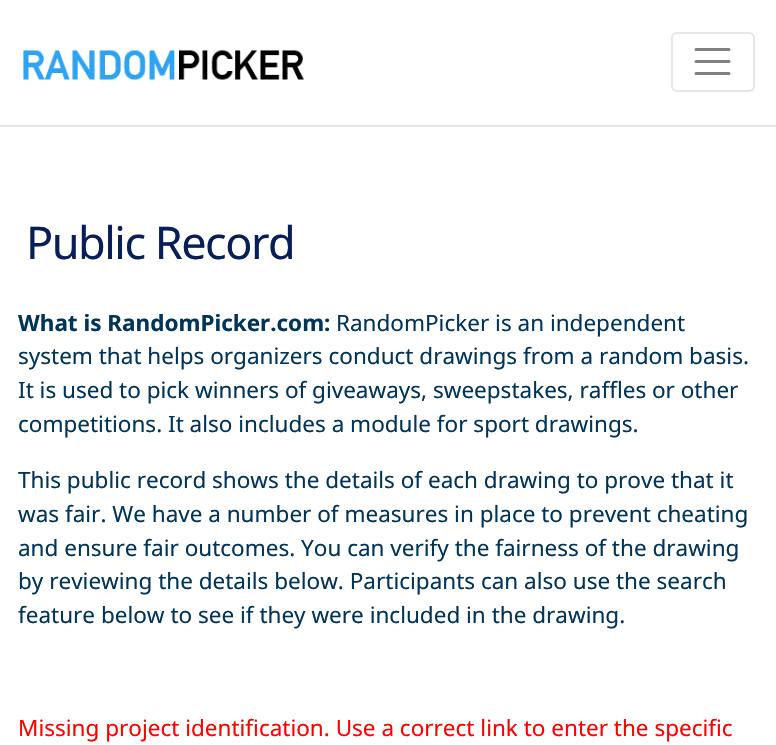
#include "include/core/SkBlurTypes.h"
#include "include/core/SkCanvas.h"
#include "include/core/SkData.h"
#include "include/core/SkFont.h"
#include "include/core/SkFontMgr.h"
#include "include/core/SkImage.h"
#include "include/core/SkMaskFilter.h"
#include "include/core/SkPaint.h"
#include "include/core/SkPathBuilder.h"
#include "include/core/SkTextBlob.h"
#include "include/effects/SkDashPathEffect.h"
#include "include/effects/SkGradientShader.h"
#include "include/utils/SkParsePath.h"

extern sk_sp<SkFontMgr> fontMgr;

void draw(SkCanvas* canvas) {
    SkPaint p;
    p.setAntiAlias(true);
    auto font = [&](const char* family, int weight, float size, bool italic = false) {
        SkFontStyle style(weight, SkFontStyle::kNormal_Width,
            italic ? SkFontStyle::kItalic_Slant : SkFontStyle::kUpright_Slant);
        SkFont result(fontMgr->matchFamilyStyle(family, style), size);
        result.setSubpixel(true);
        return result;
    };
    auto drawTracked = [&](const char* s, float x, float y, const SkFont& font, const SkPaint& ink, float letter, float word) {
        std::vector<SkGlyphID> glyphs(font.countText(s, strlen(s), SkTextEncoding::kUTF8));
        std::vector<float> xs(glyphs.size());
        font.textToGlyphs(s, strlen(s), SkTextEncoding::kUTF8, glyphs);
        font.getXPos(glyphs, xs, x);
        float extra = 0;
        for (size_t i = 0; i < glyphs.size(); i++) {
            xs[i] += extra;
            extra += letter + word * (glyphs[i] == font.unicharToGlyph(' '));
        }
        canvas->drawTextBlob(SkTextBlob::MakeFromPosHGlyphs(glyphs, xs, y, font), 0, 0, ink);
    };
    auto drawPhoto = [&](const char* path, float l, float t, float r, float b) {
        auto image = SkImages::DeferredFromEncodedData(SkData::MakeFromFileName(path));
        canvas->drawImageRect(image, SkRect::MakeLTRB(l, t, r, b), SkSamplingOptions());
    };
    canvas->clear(0xFFFFFFFF);
    drawPhoto("media/1.png", 23, 50, 305, 80);
    p.setStyle(SkPaint::kStroke_Style);
    p.setStrokeWidth(2);
    p.setColor(0xFFE6E6E6);
    canvas->drawRoundRect(SkRect::MakeLTRB(672, 33, 754, 91), 5, 5, p);
    p.setStrokeWidth(3);
    p.setStrokeCap(SkPaint::kRound_Cap);
    p.setColor(0xFF808080);
    canvas->drawPath(SkPathBuilder().moveTo(696, 49.5f).lineTo(729, 49.5f).moveTo(696, 61.5f).lineTo(729, 61.5f).moveTo(696, 73.5f).lineTo(729, 73.5f).detach(), p);
    p.setStyle(SkPaint::kFill_Style);
    p.setColor(0xFFE6E6E6);
    canvas->drawRect(SkRect::MakeLTRB(0, 125, 776, 127), p);
    auto font1 = font("Noto Sans", 400, 45);
    p.setColor(0xFF081E59);
    drawTracked("Public Record", 26, 259, font1, p, -1.5f, 0);
    auto font2 = font("Noto Sans", 700, 22.5f);
    p.setColor(0xFF003459);
    canvas->drawString("What is RandomPicker.com:", 18, 331, font2, p);
    auto font3 = font("Noto Sans", 400, 22.5f);
    {
        const struct { const char* s; float x, y; } items[] = {
            {"RandomPicker is an independent", 336, 331},
            {"system that helps organizers conduct drawings from a random basis.", 18, 364},
            {"It is used to pick winners of giveaways, sweepstakes, raffles or other", 18, 398},
            {"competitions. It also includes a module for sport drawings.", 18, 432},
            {"This public record shows the details of each drawing to prove that it", 18, 488},
            {"was fair. We have a number of measures in place to prevent cheating", 18, 522},
            {"and ensure fair outcomes. You can verify the fairness of the drawing", 18, 556},
            {"by reviewing the details below. Participants can also use the search", 18, 589},
            {"feature below to see if they were included in the drawing.", 18, 623},
        };
        for (auto [s, x, y] : items) {
            canvas->drawString(s, x, y, font3, p);
        }
    }
    p.setColor(0xFFFF0000);
    canvas->drawString("Missing project identification. Use a correct link to enter the specific", 18, 736, font3, p);
}
